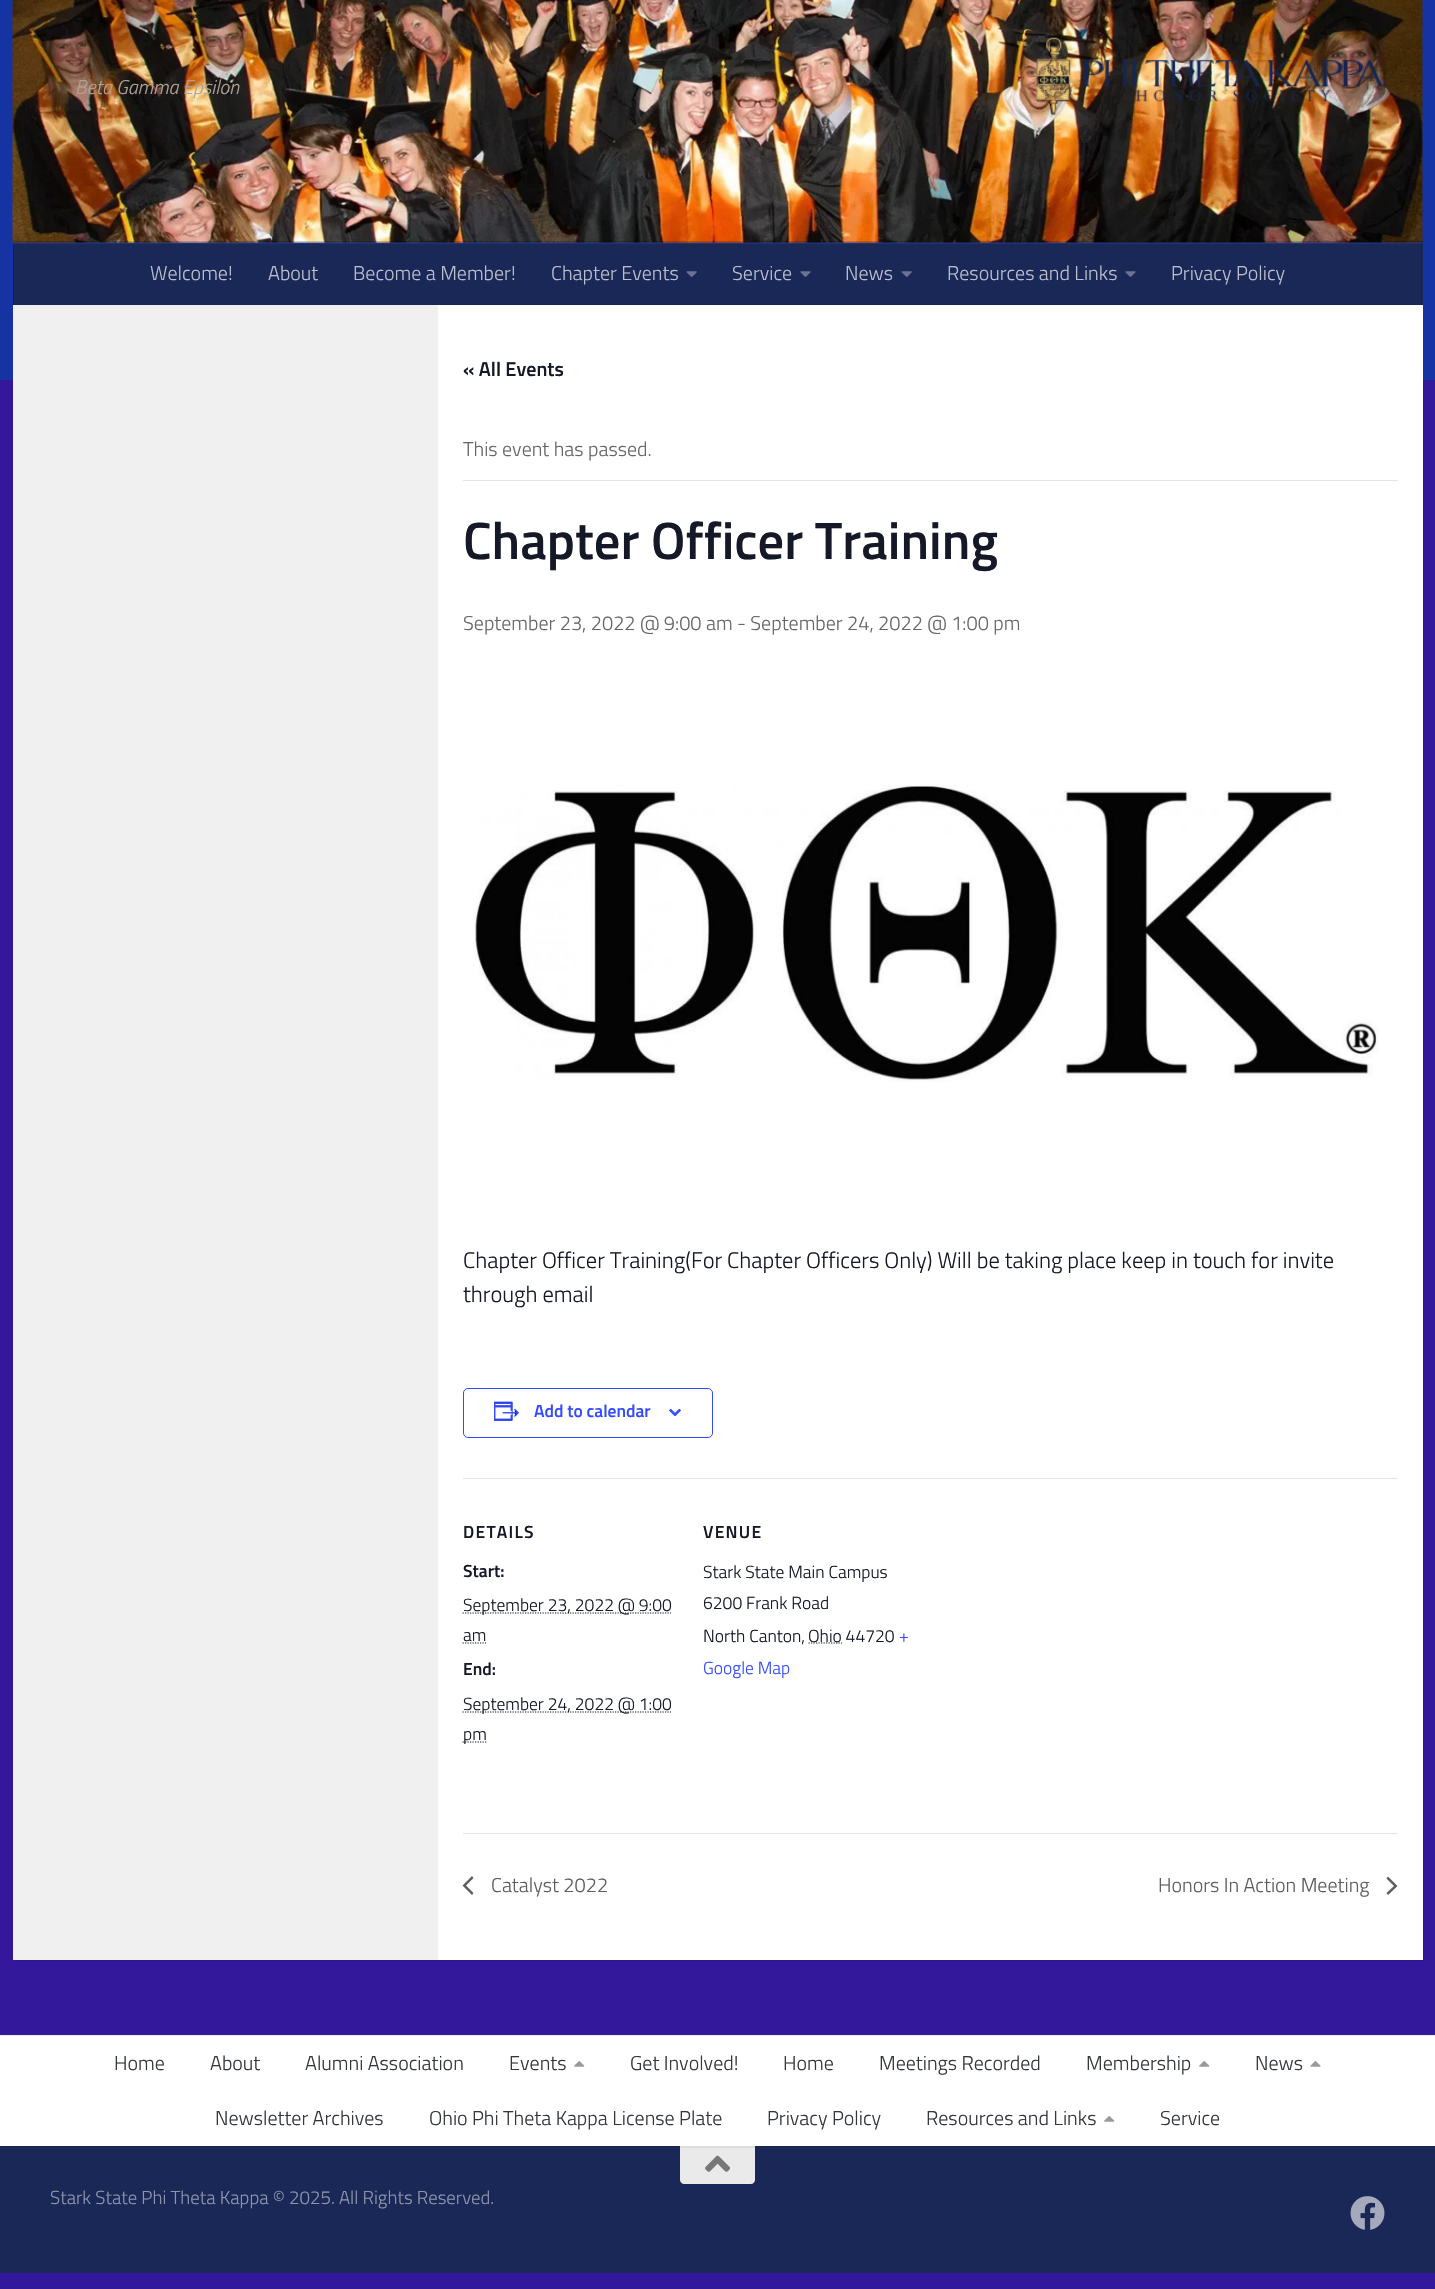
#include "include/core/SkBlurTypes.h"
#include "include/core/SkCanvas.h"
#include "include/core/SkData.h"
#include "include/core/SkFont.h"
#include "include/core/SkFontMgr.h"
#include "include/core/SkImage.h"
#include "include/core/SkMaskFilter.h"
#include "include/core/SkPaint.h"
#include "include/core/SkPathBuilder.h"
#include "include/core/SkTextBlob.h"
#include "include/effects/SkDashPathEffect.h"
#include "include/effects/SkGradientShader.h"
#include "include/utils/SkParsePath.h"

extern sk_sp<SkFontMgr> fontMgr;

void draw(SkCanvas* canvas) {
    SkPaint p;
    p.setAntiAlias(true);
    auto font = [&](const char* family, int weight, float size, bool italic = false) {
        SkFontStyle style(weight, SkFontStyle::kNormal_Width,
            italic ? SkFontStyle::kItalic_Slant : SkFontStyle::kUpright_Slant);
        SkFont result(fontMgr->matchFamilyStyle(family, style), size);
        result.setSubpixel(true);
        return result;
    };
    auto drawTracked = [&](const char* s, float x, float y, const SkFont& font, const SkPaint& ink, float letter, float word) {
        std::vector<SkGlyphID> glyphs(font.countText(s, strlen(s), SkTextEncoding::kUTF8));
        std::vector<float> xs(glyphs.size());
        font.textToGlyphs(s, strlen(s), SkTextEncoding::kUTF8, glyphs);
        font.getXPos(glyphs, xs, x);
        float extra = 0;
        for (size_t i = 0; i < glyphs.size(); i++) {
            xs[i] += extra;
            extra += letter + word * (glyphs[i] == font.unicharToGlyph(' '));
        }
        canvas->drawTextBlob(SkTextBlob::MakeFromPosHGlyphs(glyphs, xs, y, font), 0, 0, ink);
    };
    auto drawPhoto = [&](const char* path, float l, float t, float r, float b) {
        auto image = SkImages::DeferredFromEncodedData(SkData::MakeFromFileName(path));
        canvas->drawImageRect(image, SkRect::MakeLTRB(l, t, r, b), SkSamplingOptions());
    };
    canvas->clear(0xFF33189B);
    p.setColor(0x1A000000);
    p.setMaskFilter(SkMaskFilter::MakeBlur(kNormal_SkBlurStyle, 0.5f));
    canvas->drawRect(SkRect::MakeLTRB(13, 306, 1423, 1961), p);
    p.setMaskFilter(nullptr);
    p.setColor(0xFF1533A3);
    canvas->drawRect(SkRect::MakeLTRB(0, 0, 1435, 380), p);
    drawPhoto("media/1.png", 12, 0, 1423, 243);
    auto font1 = font("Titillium", 300, 20, true);
    p.setColor(0xFFAEA297);
    canvas->drawString("Beta Gamma Epsilon", 75, 94, font1, p);
    drawPhoto("media/2.png", 1036, 37, 1385, 115);
    p.setColor(0x33000000);
    canvas->drawPath(SkPathBuilder().moveTo(13, 241).lineTo(13, 242).lineTo(1422, 242).lineTo(1422, 304).lineTo(1423, 304).lineTo(1423, 241).close().detach(), p);
    {
        const struct { float l, t, r, b; SkColor color; } items[] = {
            {14, 243, 1423, 305, 0xFF1A2857},
            {1421, 243, 1422, 305, 0xFF152046},
            {13, 243, 14, 305, 0xFF152046},
            {13, 243, 1423, 244, 0x0DFFFFFF},
        };
        for (auto [l, t, r, b, color] : items) {
            p.setColor(color);
            canvas->drawRect(SkRect::MakeLTRB(l, t, r, b), p);
        }
    }
    auto font2 = font("Titillium", 300, 20);
    p.setColor(0xFFBABFCD);
    {
        const struct { const char* s; float x, y; } items[] = {
            {"Welcome!", 150, 280},
            {"About", 268, 280},
            {"Become a Member!", 353, 280},
            {"Chapter Events", 551, 280},
        };
        for (auto [s, x, y] : items) {
            canvas->drawString(s, x, y, font2, p);
        }
    }
    drawPhoto("media/3.png", 686, 271, 697, 277);
    canvas->drawString("Service", 732, 280, font2, p);
    drawPhoto("media/4.png", 800, 271, 811, 277);
    canvas->drawString("News", 845, 280, font2, p);
    drawPhoto("media/3.png", 901, 271, 912, 277);
    canvas->drawString("Resources and Links", 947, 280, font2, p);
    drawPhoto("media/4.png", 1125, 271, 1136, 277);
    canvas->drawString("Privacy Policy", 1171, 280, font2, p);
    p.setColor(0xFFFFFFFF);
    canvas->drawRect(SkRect::MakeLTRB(438, 305, 1423, 1960), p);
    p.setColor(0xFFF0F0F0);
    canvas->drawRect(SkRect::MakeLTRB(13, 305, 438, 1960), p);
    auto font3 = font("Titillium", 600, 20);
    p.setColor(0xFF141827);
    canvas->drawString("« All Events", 463, 376, font3, p);
    p.setColor(0xFFE4E4E4);
    canvas->drawRect(SkRect::MakeLTRB(463, 480, 1398, 481), p);
    p.setColor(0xFF666666);
    canvas->drawString("This event has passed.", 463, 456, font2, p);
    auto font4 = font("Titillium", 600, 52.5f);
    p.setColor(0xFF141827);
    canvas->drawString("Chapter Officer Training", 463, 559, font4, p);
    p.setColor(0xFF666666);
    canvas->drawString("September 23, 2022 @ 9:00 am - September 24, 2022 @ 1:00 pm", 463, 630, font2, p);
    drawPhoto("media/5.png", 473, 785, 1379, 1082);
    auto font5 = font("Titillium", 300, 22.5f);
    p.setColor(0xFF141827);
    canvas->drawString("Chapter Officer Training(For Chapter Officers Only) Will be taking place keep in touch for invite", 463, 1268, font5, p);
    canvas->drawString("through email", 463, 1302, font5, p);
    p.setStyle(SkPaint::kStroke_Style);
    p.setStrokeWidth(1);
    p.setColor(0xFF334AFF);
    canvas->drawRoundRect(SkRect::MakeLTRB(463.5f, 1388.5f, 712.5f, 1437.5f), 4.5f, 4.5f, p);
    drawPhoto("media/6.png", 494, 1401, 519, 1421);
    auto font6 = font("Titillium", 600, 17.5f);
    p.setStyle(SkPaint::kFill_Style);
    canvas->drawString("Add to calendar", 534, 1417, font6, p);
    drawPhoto("media/7.png", 669, 1409, 681, 1416);
    p.setColor(0xFFE4E4E4);
    canvas->drawRect(SkRect::MakeLTRB(463, 1478, 1398, 1479), p);
    p.setColor(0xFF141827);
    drawTracked("DETAILS", 463, 1538, font6, p, 1.25f, 0);
    canvas->drawString("Start:", 463, 1577, font6, p);
    p.setStyle(SkPaint::kStroke_Style);
    p.setStrokeWidth(1.2f);
    p.setPathEffect(SkDashPathEffect::Make({{1.25f, 1.25f}}, 0));
    canvas->drawPath(SkPathBuilder().moveTo(462.5f, 1613).lineTo(671, 1613).detach(), p);
    p.setPathEffect(nullptr);
    auto font7 = font("Titillium", 300, 17.5f);
    p.setStyle(SkPaint::kFill_Style);
    canvas->drawString("September 23, 2022 @ 9:00", 463, 1611, font7, p);
    canvas->drawString("am", 463, 1641, font7, p);
    p.setStyle(SkPaint::kStroke_Style);
    p.setPathEffect(SkDashPathEffect::Make({{1.25f, 1.25f}}, 0));
    canvas->drawPath(SkPathBuilder().moveTo(462.5f, 1643).lineTo(486, 1643).detach(), p);
    p.setPathEffect(nullptr);
    p.setStyle(SkPaint::kFill_Style);
    canvas->drawString("End:", 463, 1675, font6, p);
    p.setStyle(SkPaint::kStroke_Style);
    p.setPathEffect(SkDashPathEffect::Make({{1.25f, 1.25f}}, 0));
    canvas->drawPath(SkPathBuilder().moveTo(462.5f, 1712).lineTo(671, 1712).detach(), p);
    p.setPathEffect(nullptr);
    p.setStyle(SkPaint::kFill_Style);
    canvas->drawString("September 24, 2022 @ 1:00", 463, 1710, font7, p);
    p.setStyle(SkPaint::kStroke_Style);
    p.setPathEffect(SkDashPathEffect::Make({{1.25f, 1.25f}}, 0));
    canvas->drawPath(SkPathBuilder().moveTo(462.5f, 1742).lineTo(486.5f, 1742).detach(), p);
    p.setPathEffect(nullptr);
    p.setStyle(SkPaint::kFill_Style);
    canvas->drawString("pm", 463, 1740, font7, p);
    drawTracked("VENUE", 703, 1538, font6, p, 1.25f, 0);
    {
        const struct { const char* s; float x, y; } items[] = {
            {"Stark State Main Campus", 703, 1578},
            {"6200 Frank Road", 703, 1609},
            {"North Canton,", 703, 1642},
        };
        for (auto [s, x, y] : items) {
            canvas->drawString(s, x, y, font7, p);
        }
    }
    p.setStyle(SkPaint::kStroke_Style);
    p.setPathEffect(SkDashPathEffect::Make({{1.25f, 1.25f}}, 0));
    canvas->drawPath(SkPathBuilder().moveTo(808.5f, 1643).lineTo(842, 1643).detach(), p);
    p.setPathEffect(nullptr);
    p.setStyle(SkPaint::kFill_Style);
    canvas->drawString("Ohio 44720", 808, 1642, font7, p);
    p.setColor(0xFF334AFF);
    canvas->drawString("+", 899, 1642, font7, p);
    canvas->drawString("Google Map", 703, 1674, font7, p);
    p.setColor(0xFFE4E4E4);
    canvas->drawRect(SkRect::MakeLTRB(463, 1833, 1398, 1834), p);
    p.setColor(0xFF5D5D5D);
    canvas->drawPath(SkPathBuilder().moveTo(473.5f, 1893).lineTo(472, 1895).lineTo(462.5f, 1885.5f).lineTo(472, 1876).lineTo(473.5f, 1878).lineTo(466, 1885.5f).close().detach(), p);
    canvas->drawString("Catalyst 2022", 491, 1892, font2, p);
    canvas->drawString("Honors In Action Meeting", 1158, 1892, font2, p);
    canvas->drawPath(SkPathBuilder().moveTo(1386.5f, 1878.5f).lineTo(1388, 1876.5f).lineTo(1397.5f, 1886).lineTo(1388, 1895).lineTo(1386.5f, 1893).lineTo(1394, 1886).close().detach(), p);
    p.setColor(0xFFFFFFFF);
    canvas->drawRect(SkRect::MakeLTRB(0, 2036, 1435, 2146), p);
    p.setColor(0xFFEEEEEE);
    canvas->drawRect(SkRect::MakeLTRB(0, 2035, 1435, 2036), p);
    p.setColor(0xFF33363B);
    {
        const struct { const char* s; float x, y; } items[] = {
            {"Home", 114, 2070},
            {"About", 210, 2070},
            {"Alumni Association", 305, 2070},
            {"Events", 509, 2070},
        };
        for (auto [s, x, y] : items) {
            canvas->drawString(s, x, y, font2, p);
        }
    }
    drawPhoto("media/8.png", 574, 2061, 585, 2067);
    {
        const struct { const char* s; float x, y; } items[] = {
            {"Get Involved!", 630, 2070},
            {"Home", 783, 2070},
            {"Meetings Recorded", 879, 2070},
            {"Membership", 1086, 2070},
        };
        for (auto [s, x, y] : items) {
            canvas->drawString(s, x, y, font2, p);
        }
    }
    drawPhoto("media/8.png", 1199, 2061, 1210, 2067);
    canvas->drawString("News", 1255, 2070, font2, p);
    drawPhoto("media/9.png", 1310, 2061, 1321, 2067);
    {
        const struct { const char* s; float x, y; } items[] = {
            {"Newsletter Archives", 215, 2125},
            {"Ohio Phi Theta Kappa License Plate", 429, 2125},
            {"Privacy Policy", 767, 2125},
            {"Resources and Links", 926, 2125},
        };
        for (auto [s, x, y] : items) {
            canvas->drawString(s, x, y, font2, p);
        }
    }
    drawPhoto("media/8.png", 1104, 2116, 1115, 2122);
    canvas->drawString("Service", 1160, 2125, font2, p);
    p.setColor(0xFF1A2857);
    canvas->drawRect(SkRect::MakeLTRB(0, 2146, 1435, 2273), p);
    p.setColor(0xFFEAEAEA);
    canvas->drawPath(SkPathBuilder().moveTo(680, 2146).lineTo(755, 2146).lineTo(755, 2180).cubicTo(755, 2182, 753, 2184, 751, 2184).lineTo(684, 2184).cubicTo(682, 2184, 680, 2182, 680, 2180).close().detach(), p);
    p.setColor(0xFFDEDEDE);
    canvas->drawRect(SkRect::MakeLTRB(680, 2146, 755, 2148), p);
    drawPhoto("media/10.png", 705, 2155, 730, 2172);
    auto font8 = font("Titillium", 300, 18.75f);
    p.setColor(0xFF8D94AB);
    canvas->drawString("Stark State Phi Theta Kappa © 2025. All Rights Reserved.", 50, 2204, font8, p);
    drawPhoto("media/11.png", 1350, 2196, 1385, 2230);
}
